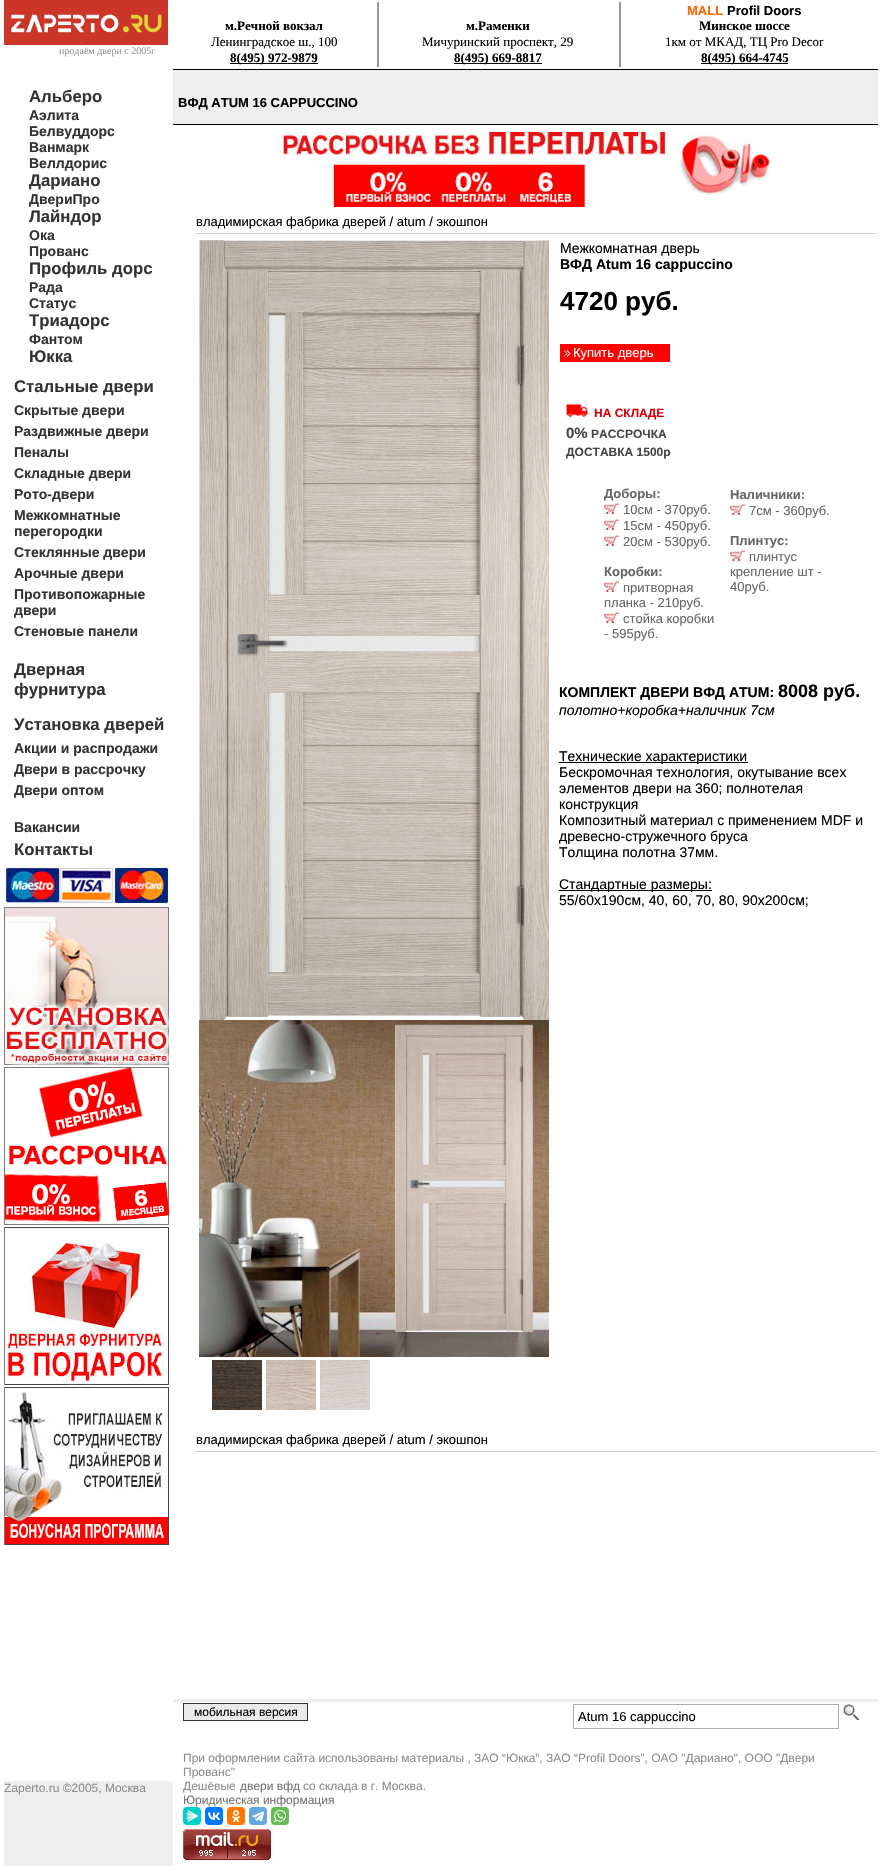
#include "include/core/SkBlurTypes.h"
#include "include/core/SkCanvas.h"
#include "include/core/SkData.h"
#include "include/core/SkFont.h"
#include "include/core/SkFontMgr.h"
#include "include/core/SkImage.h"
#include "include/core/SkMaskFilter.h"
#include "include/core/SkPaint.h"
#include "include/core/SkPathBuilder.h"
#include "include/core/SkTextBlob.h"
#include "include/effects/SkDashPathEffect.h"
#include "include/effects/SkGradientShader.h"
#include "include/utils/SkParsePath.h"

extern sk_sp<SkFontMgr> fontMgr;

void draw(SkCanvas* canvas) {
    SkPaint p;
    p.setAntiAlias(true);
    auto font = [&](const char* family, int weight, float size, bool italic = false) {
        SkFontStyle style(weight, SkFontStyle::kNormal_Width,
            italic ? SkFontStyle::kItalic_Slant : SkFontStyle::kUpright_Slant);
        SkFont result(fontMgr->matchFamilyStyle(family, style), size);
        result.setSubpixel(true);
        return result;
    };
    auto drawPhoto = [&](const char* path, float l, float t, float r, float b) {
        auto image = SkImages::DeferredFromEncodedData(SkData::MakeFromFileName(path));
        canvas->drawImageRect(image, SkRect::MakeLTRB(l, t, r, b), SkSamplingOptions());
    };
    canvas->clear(0xFFFFFFFF);
    drawPhoto("media/1.png", 4, 0, 168, 45);
    auto font1 = font("Liberation Serif", 400, 10);
    p.setColor(0xFF939393);
    canvas->drawString("продаём двери c 2005г", 59, 54, font1, p);
    auto font2 = font("Liberation Sans", 700, 16.75f);
    p.setColor(0xFF333333);
    canvas->drawString("Альберо", 29, 102, font2, p);
    auto font3 = font("Liberation Sans", 700, 14);
    {
        const struct { const char* s; float x, y; } items[] = {
            {"Аэлита", 29, 120},
            {"Белвуддорс", 29, 136},
            {"Ванмарк", 29, 152},
            {"Веллдорис", 29, 168},
        };
        for (auto [s, x, y] : items) {
            canvas->drawString(s, x, y, font3, p);
        }
    }
    canvas->drawString("Дариано", 29, 186, font2, p);
    canvas->drawString("ДвериПро", 29, 204, font3, p);
    canvas->drawString("Лайндор", 29, 222, font2, p);
    canvas->drawString("Ока", 29, 240, font3, p);
    canvas->drawString("Прованс", 29, 256, font3, p);
    canvas->drawString("Профиль дорс", 29, 274, font2, p);
    canvas->drawString("Рада", 29, 292, font3, p);
    canvas->drawString("Статус", 29, 308, font3, p);
    canvas->drawString("Триадорс", 29, 326, font2, p);
    canvas->drawString("Фантом", 29, 344, font3, p);
    canvas->drawString("Юкка", 29, 362, font2, p);
    canvas->drawString("Стальные двери", 14, 392, font2, p);
    {
        const struct { const char* s; float x, y; } items[] = {
            {"Скрытые двери", 14, 415},
            {"Раздвижные двери", 14, 436},
            {"Пеналы", 14, 457},
            {"Складные двери", 14, 478},
            {"Рото-двери", 14, 499},
            {"Межкомнатные", 14, 520},
            {"перегородки", 14, 536},
            {"Стеклянные двери", 14, 557},
            {"Арочные двери", 14, 578},
            {"Противопожарные", 14, 599},
            {"двери", 14, 615},
            {"Стеновые панели", 14, 636},
        };
        for (auto [s, x, y] : items) {
            canvas->drawString(s, x, y, font3, p);
        }
    }
    {
        const struct { const char* s; float x, y; } items[] = {
            {"Дверная", 14, 675},
            {"фурнитура", 14, 695},
            {"Установка дверей", 14, 730},
        };
        for (auto [s, x, y] : items) {
            canvas->drawString(s, x, y, font2, p);
        }
    }
    {
        const struct { const char* s; float x, y; } items[] = {
            {"Акции и распродажи", 14, 753},
            {"Двери в рассрочку", 14, 774},
            {"Двери оптом", 14, 795},
            {"Вакансии", 14, 832},
        };
        for (auto [s, x, y] : items) {
            canvas->drawString(s, x, y, font3, p);
        }
    }
    canvas->drawString("Контакты", 14, 855, font2, p);
    drawPhoto("media/2.png", 4, 865, 170, 905);
    drawPhoto("media/3.png", 4, 906, 170, 1066);
    drawPhoto("media/4.png", 4, 1066, 170, 1225);
    drawPhoto("media/5.png", 4, 1226, 170, 1386);
    drawPhoto("media/6.png", 4, 1386, 170, 1546);
    p.setColor(0xFFEEEEEE);
    canvas->drawRect(SkRect::MakeLTRB(4, 1781, 173, 1866), p);
    auto font4 = font("Liberation Sans", 400, 12);
    p.setColor(0xFF8C8C8C);
    canvas->drawString("Zaperto.ru ©2005, Москва", 4, 1792, font4, p);
    p.setColor(0xFF999999);
    canvas->drawRect(SkRect::MakeLTRB(377, 2, 379, 67), p);
    auto font5 = font("Liberation Serif", 700, 13);
    p.setColor(0xFF000000);
    canvas->drawString("м.Речной вокзал", 225, 30, font5, p);
    auto font6 = font("Liberation Serif", 400, 13);
    canvas->drawString("Ленинградское ш., 100", 211, 46, font6, p);
    canvas->drawRect(SkRect::MakeLTRB(230, 63, 318, 64), p);
    canvas->drawString("8(495) 972-9879", 230, 62, font5, p);
    p.setColor(0xFF999999);
    canvas->drawRect(SkRect::MakeLTRB(619, 2, 621, 67), p);
    p.setColor(0xFF000000);
    canvas->drawString("м.Раменки", 466, 30, font5, p);
    canvas->drawString("Мичуринский проспект, 29", 422, 46, font6, p);
    canvas->drawRect(SkRect::MakeLTRB(454, 63, 542, 64), p);
    canvas->drawString("8(495) 669-8817", 454, 62, font5, p);
    auto font7 = font("Liberation Sans", 700, 13);
    p.setColor(0xFFFF6600);
    canvas->drawString("MALL", 687, 15, font7, p);
    p.setColor(0xFF000000);
    canvas->drawString("Profil Doors", 727, 15, font7, p);
    canvas->drawString("Минское шоссе", 699, 30, font5, p);
    canvas->drawString("1км от МКАД, ТЦ Pro Decor", 665, 46, font6, p);
    canvas->drawRect(SkRect::MakeLTRB(701, 63, 788, 64), p);
    canvas->drawString("8(495) 664-4745", 701, 62, font5, p);
    {
        const struct { float l, t, r, b; SkColor color; } items[] = {
            {173, 70, 878, 124, 0xFFEEEEEE},
            {173, 69, 878, 70, 0xFF000000},
            {173, 124, 878, 125, 0xFF000000},
        };
        for (auto [l, t, r, b, color] : items) {
            p.setColor(color);
            canvas->drawRect(SkRect::MakeLTRB(l, t, r, b), p);
        }
    }
    canvas->drawString("ВФД ATUM 16 CAPPUCCINO", 178, 107, font7, p);
    drawPhoto("media/7.png", 283, 132, 773, 207);
    p.setColor(0xFFCECECE);
    canvas->drawRect(SkRect::MakeLTRB(195, 233, 876, 234), p);
    auto font8 = font("Liberation Sans", 400, 13);
    p.setColor(0xFF000000);
    canvas->drawString("владимирская фабрика дверей / atum / экошпон", 196, 226, font8, p);
    drawPhoto("media/8.png", 199, 240, 549, 1020);
    drawPhoto("media/9.png", 199, 1020, 549, 1357);
    drawPhoto("media/10.png", 212, 1360, 262, 1410);
    drawPhoto("media/11.png", 266, 1360, 316, 1410);
    drawPhoto("media/12.png", 320, 1360, 370, 1410);
    auto font9 = font("Liberation Sans", 400, 14);
    canvas->drawString("Межкомнатная дверь", 560, 253, font9, p);
    canvas->drawString("ВФД Atum 16 cappuccino", 560, 269, font3, p);
    auto font10 = font("Liberation Sans", 700, 26);
    canvas->drawString("4720 руб.", 560, 310, font10, p);
    drawPhoto("media/13.png", 560, 344, 670, 362);
    p.setColor(0xFFFFFFFF);
    canvas->drawString("Купить дверь", 573, 357, font8, p);
    drawPhoto("media/14.png", 566, 404, 588, 417);
    auto font11 = font("Liberation Sans", 700, 12);
    p.setColor(0xFFDB010C);
    canvas->drawString("НА СКЛАДЕ", 594, 417, font11, p);
    auto font12 = font("Liberation Sans", 700, 15);
    p.setColor(0xFF454545);
    canvas->drawString("0%", 566, 438, font12, p);
    canvas->drawString("РАССРОЧКА", 591, 438, font11, p);
    canvas->drawString("ДОСТАВКА 1500р", 566, 456, font11, p);
    p.setColor(0xFF666666);
    canvas->drawString("Доборы:", 604, 498, font7, p);
    drawPhoto("media/15.png", 604, 503, 619, 514);
    canvas->drawString("10см - 370руб.", 623, 514, font8, p);
    drawPhoto("media/15.png", 604, 519, 619, 530);
    canvas->drawString("15см - 450руб.", 623, 530, font8, p);
    drawPhoto("media/15.png", 604, 535, 619, 546);
    canvas->drawString("20см - 530руб.", 623, 546, font8, p);
    canvas->drawString("Коробки:", 604, 576, font7, p);
    drawPhoto("media/15.png", 604, 581, 619, 592);
    canvas->drawString("притворная", 623, 592, font8, p);
    canvas->drawString("планка - 210руб.", 604, 607, font8, p);
    drawPhoto("media/15.png", 604, 612, 619, 623);
    canvas->drawString("стойка коробки", 623, 623, font8, p);
    canvas->drawString("- 595руб.", 604, 638, font8, p);
    canvas->drawString("Наличники:", 730, 499, font7, p);
    drawPhoto("media/15.png", 730, 504, 745, 515);
    canvas->drawString("7см - 360руб.", 749, 515, font8, p);
    canvas->drawString("Плинтус:", 730, 545, font7, p);
    drawPhoto("media/15.png", 730, 550, 745, 561);
    {
        const struct { const char* s; float x, y; } items[] = {
            {"плинтус", 749, 561},
            {"крепление шт -", 730, 576},
            {"40руб.", 730, 591},
        };
        for (auto [s, x, y] : items) {
            canvas->drawString(s, x, y, font8, p);
        }
    }
    p.setColor(0xFF000000);
    canvas->drawString("КОМПЛЕКТ ДВЕРИ ВФД ATUM:", 559, 697, font3, p);
    auto font13 = font("Liberation Sans", 700, 18);
    canvas->drawString("8008 руб.", 778, 697, font13, p);
    auto font14 = font("Liberation Sans", 400, 14, true);
    canvas->drawString("полотно+коробка+наличник 7см", 559, 715, font14, p);
    canvas->drawRect(SkRect::MakeLTRB(559, 762, 748, 763), p);
    {
        const struct { const char* s; float x, y; } items[] = {
            {"Технические характеристики", 559, 761},
            {"Бескромочная технология, окутывание всех", 559, 777},
            {"элементов двери на 360; полнотелая", 559, 793},
            {"конструкция", 559, 809},
            {"Композитный материал с применением MDF и", 559, 825},
            {"древесно-стружечного бруса", 559, 841},
            {"Толщина полотна 37мм.", 559, 857},
        };
        for (auto [s, x, y] : items) {
            canvas->drawString(s, x, y, font9, p);
        }
    }
    canvas->drawRect(SkRect::MakeLTRB(559, 890, 712, 891), p);
    canvas->drawString("Стандартные размеры:", 559, 889, font9, p);
    canvas->drawString("55/60x190см, 40, 60, 70, 80, 90х200см;", 559, 905, font9, p);
    p.setColor(0xFFCECECE);
    canvas->drawRect(SkRect::MakeLTRB(195, 1451, 876, 1452), p);
    p.setColor(0xFF000000);
    canvas->drawString("владимирская фабрика дверей / atum / экошпон", 196, 1444, font8, p);
    p.setColor(0xFFEEEEEE);
    canvas->drawRect(SkRect::MakeLTRB(173, 1699, 878, 1702), p);
    p.setColor(0xFFEAEAEA);
    canvas->drawRect(SkRect::MakeLTRB(183.5f, 1703.5f, 307.5f, 1720.5f), p);
    p.setStyle(SkPaint::kStroke_Style);
    p.setStrokeWidth(1);
    p.setColor(0xFF333333);
    canvas->drawRect(SkRect::MakeLTRB(183.5f, 1703.5f, 307.5f, 1720.5f), p);
    p.setStyle(SkPaint::kFill_Style);
    p.setColor(0xFF000000);
    canvas->drawString("мобильная версия", 194, 1716, font4, p);
    p.setStyle(SkPaint::kStroke_Style);
    p.setColor(0xFFADADAD);
    canvas->drawRect(SkRect::MakeLTRB(573.5f, 1704.5f, 838.5f, 1728.5f), p);
    p.setStyle(SkPaint::kFill_Style);
    p.setColor(0xFF000000);
    canvas->drawString("Atum 16 cappuccino", 578, 1721, font8, p);
    drawPhoto("media/16.png", 843, 1704, 859, 1720);
    p.setColor(0xFF8C8C8C);
    {
        const struct { const char* s; float x, y; } items[] = {
            {"При оформлении сайта использованы материалы , ЗАО “Юкка”, ЗАО “Profil Doors”, ОАО \"Дариано\", ООО \"Двери", 183, 1762},
            {"Прованс\"", 183, 1776},
            {"Дешёвые", 183, 1790},
        };
        for (auto [s, x, y] : items) {
            canvas->drawString(s, x, y, font4, p);
        }
    }
    p.setColor(0xFF737373);
    canvas->drawString("двери вфд", 240, 1790, font4, p);
    p.setColor(0xFF8C8C8C);
    canvas->drawString("со склада в г. Москва.", 303, 1790, font4, p);
    p.setColor(0xFF737373);
    canvas->drawString("Юридическая информация", 183, 1804, font4, p);
    p.setColor(0xFF03CECE);
    canvas->drawRoundRect(SkRect::MakeLTRB(183, 1807, 201, 1825), 4, 4, p);
    drawPhoto("media/17.png", 186, 1810, 198, 1822);
    p.setColor(0xFF0077FF);
    canvas->drawRoundRect(SkRect::MakeLTRB(205, 1807, 223, 1825), 4, 4, p);
    drawPhoto("media/18.png", 208, 1812, 220, 1820);
    p.setColor(0xFFFF7700);
    canvas->drawRoundRect(SkRect::MakeLTRB(227, 1807, 245, 1825), 4, 4, p);
    drawPhoto("media/19.png", 232, 1810, 240, 1822);
    p.setColor(0xFF64A9DC);
    canvas->drawRoundRect(SkRect::MakeLTRB(249, 1807, 267, 1825), 4, 4, p);
    drawPhoto("media/20.png", 252, 1811, 264, 1822);
    p.setColor(0xFF65BC54);
    canvas->drawRoundRect(SkRect::MakeLTRB(271, 1807, 289, 1825), 4, 4, p);
    drawPhoto("media/21.png", 274, 1810, 286, 1822);
    drawPhoto("media/22.png", 183, 1829, 271, 1860);
}
